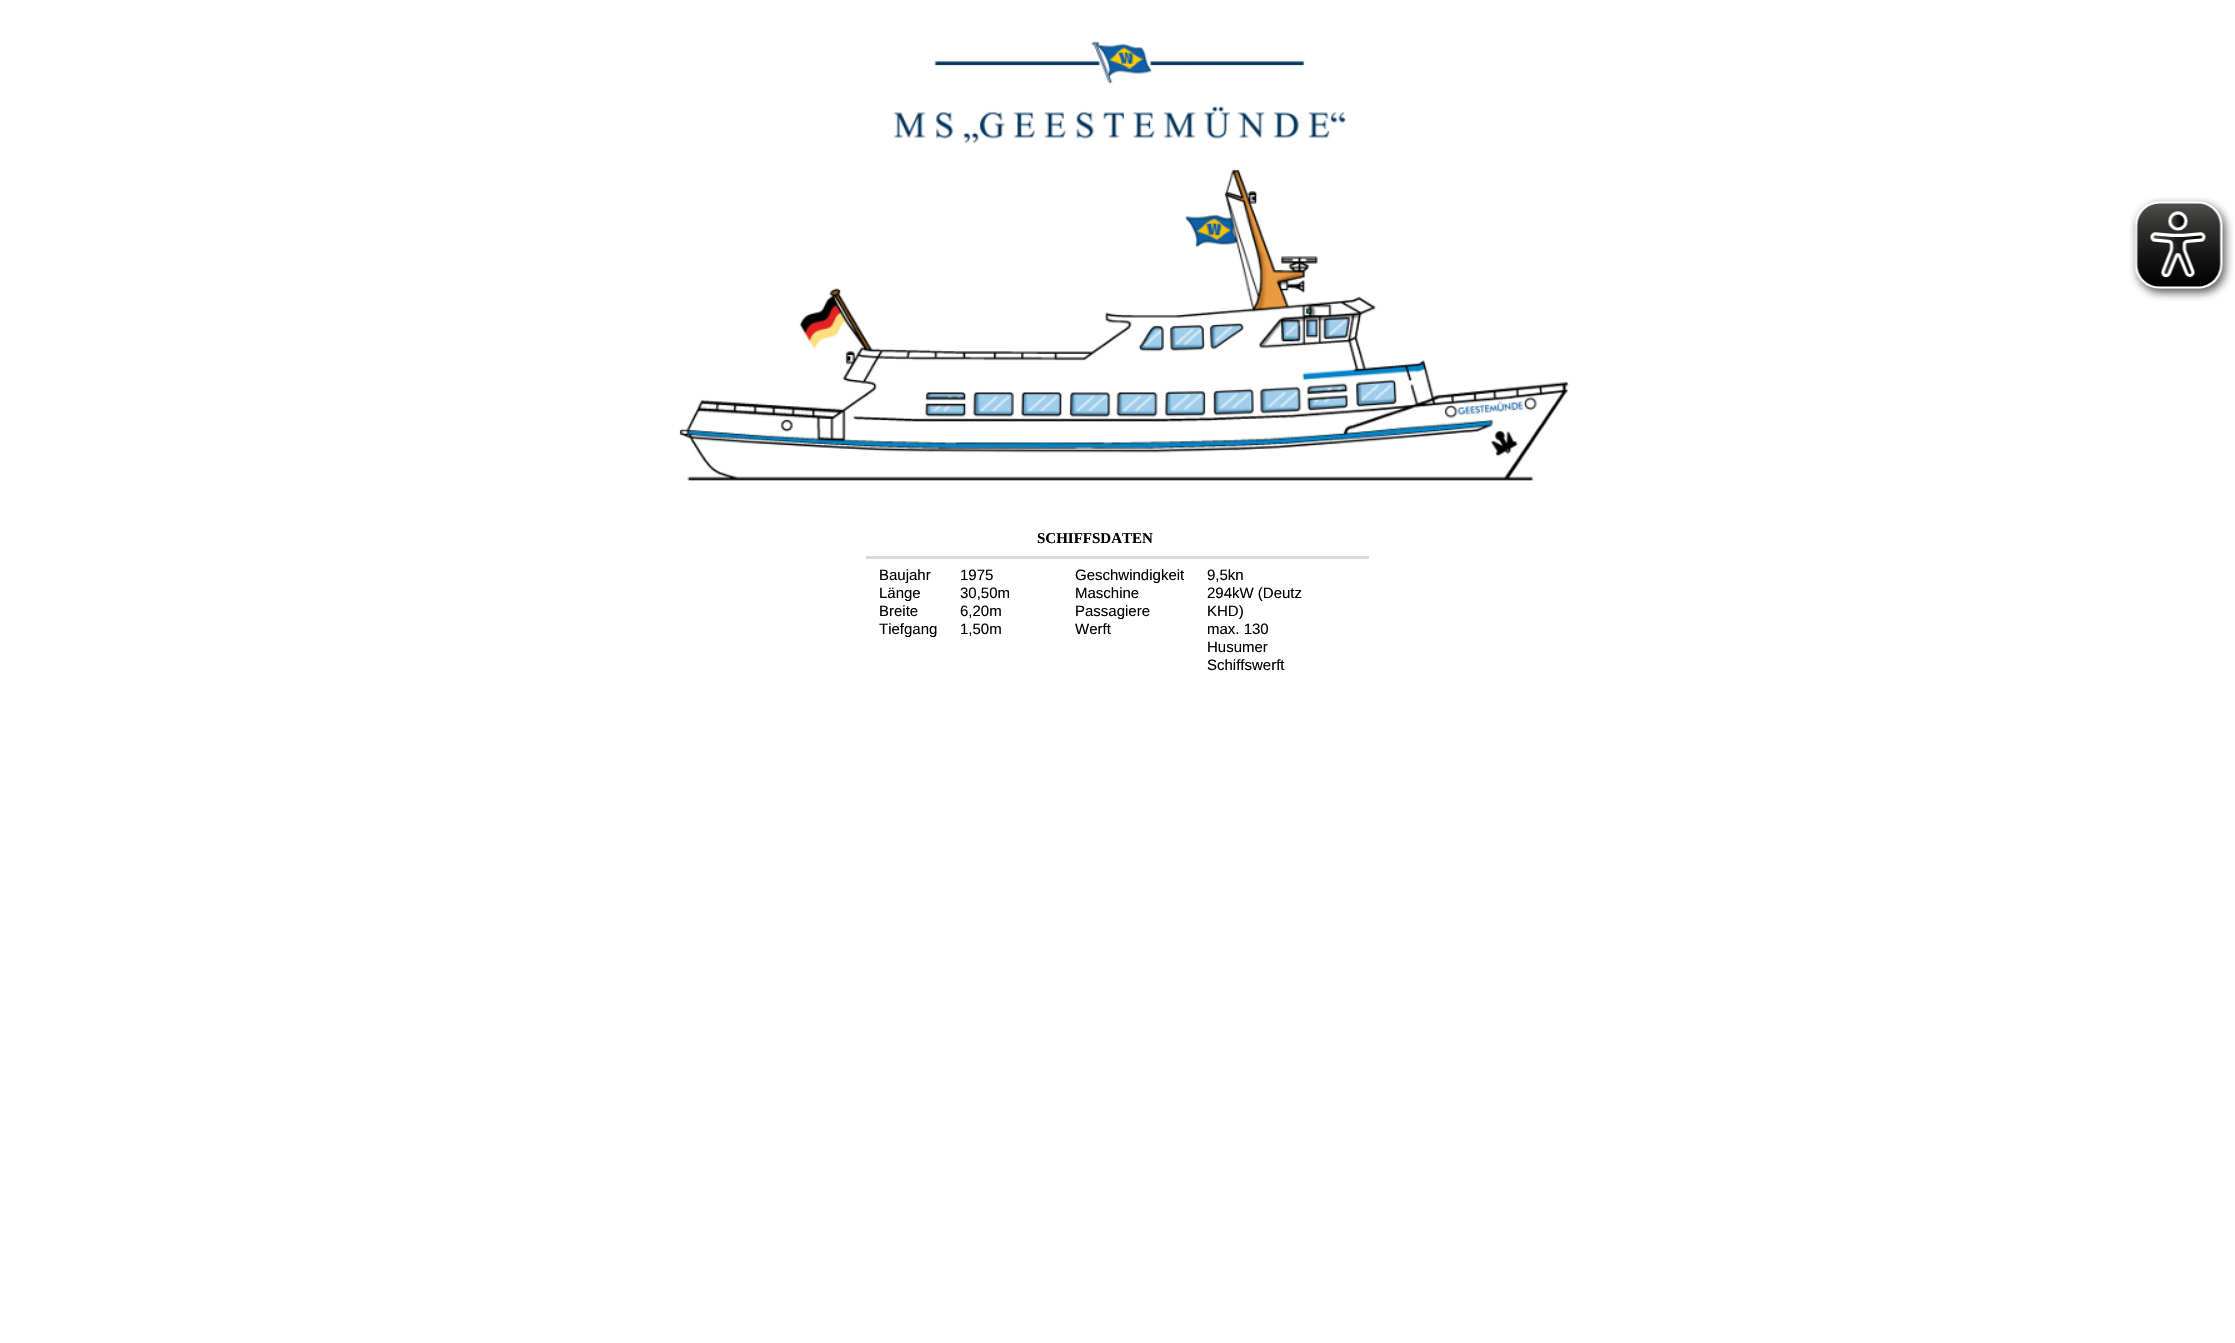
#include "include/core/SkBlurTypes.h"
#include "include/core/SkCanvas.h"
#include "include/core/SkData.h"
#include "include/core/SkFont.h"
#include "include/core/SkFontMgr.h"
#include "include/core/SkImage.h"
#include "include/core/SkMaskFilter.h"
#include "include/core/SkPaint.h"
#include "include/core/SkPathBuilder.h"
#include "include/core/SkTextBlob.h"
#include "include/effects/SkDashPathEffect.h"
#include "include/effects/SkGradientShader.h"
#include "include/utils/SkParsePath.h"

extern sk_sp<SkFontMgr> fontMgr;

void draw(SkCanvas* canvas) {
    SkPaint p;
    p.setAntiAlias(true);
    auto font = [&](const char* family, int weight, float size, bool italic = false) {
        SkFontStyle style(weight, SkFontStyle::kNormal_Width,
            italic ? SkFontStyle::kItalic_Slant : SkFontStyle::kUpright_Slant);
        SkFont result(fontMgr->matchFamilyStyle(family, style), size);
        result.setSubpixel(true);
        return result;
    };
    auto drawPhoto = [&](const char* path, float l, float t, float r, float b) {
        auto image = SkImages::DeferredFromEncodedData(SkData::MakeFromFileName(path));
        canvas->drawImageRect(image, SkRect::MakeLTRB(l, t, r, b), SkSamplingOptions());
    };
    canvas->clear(0xFFFFFFFF);
    drawPhoto("media/1.png", 2129, 197, 2234, 301);
    drawPhoto("media/2.png", 679, 41, 1569, 481);
    auto font1 = font("Liberation Serif", 700, 15);
    p.setColor(0xFF000000);
    canvas->drawString("SCHIFFSDATEN", 1037, 543, font1, p);
    p.setColor(0xFFDADADA);
    canvas->drawRect(SkRect::MakeLTRB(866, 556, 1369, 559), p);
    auto font2 = font("Liberation Sans", 400, 15);
    p.setColor(0xFF000000);
    {
        const struct { const char* s; float x, y; } items[] = {
            {"Baujahr", 879, 580},
            {"Länge", 879, 598},
            {"Breite", 879, 616},
            {"Tiefgang", 879, 634},
            {"1975", 960, 580},
            {"30,50m", 960, 598},
            {"6,20m", 960, 616},
            {"1,50m", 960, 634},
            {"Geschwindigkeit", 1075, 580},
            {"Maschine", 1075, 598},
            {"Passagiere", 1075, 616},
            {"Werft", 1075, 634},
            {"9,5kn", 1207, 580},
            {"294kW (Deutz", 1207, 598},
            {"KHD)", 1207, 616},
            {"max. 130", 1207, 634},
            {"Husumer", 1207, 652},
            {"Schiffswerft", 1207, 670},
        };
        for (auto [s, x, y] : items) {
            canvas->drawString(s, x, y, font2, p);
        }
    }
}
